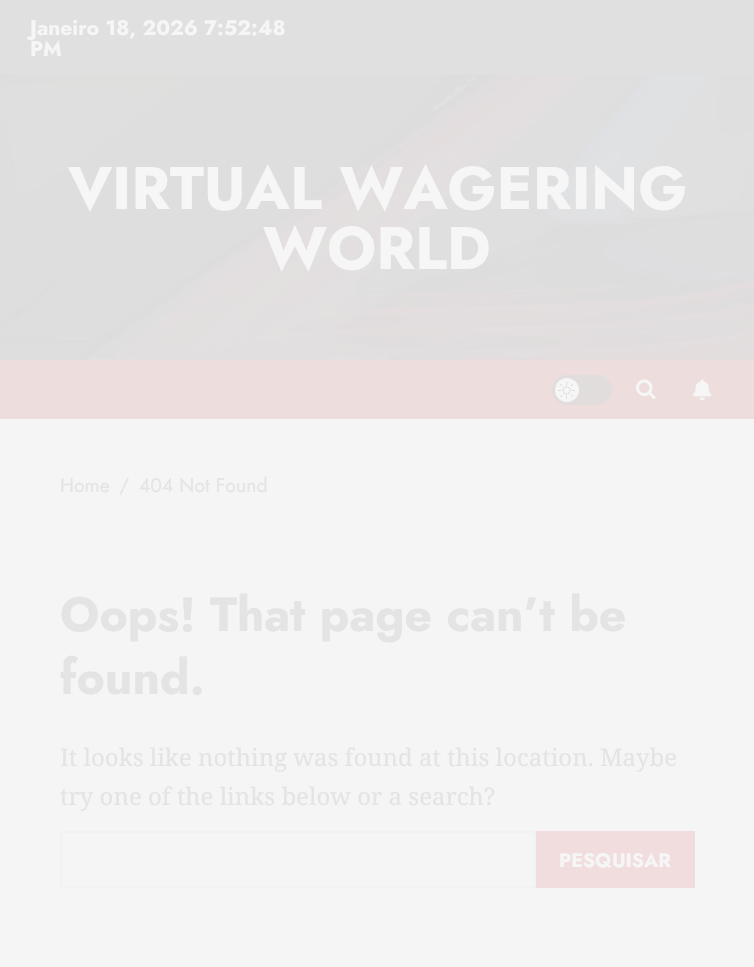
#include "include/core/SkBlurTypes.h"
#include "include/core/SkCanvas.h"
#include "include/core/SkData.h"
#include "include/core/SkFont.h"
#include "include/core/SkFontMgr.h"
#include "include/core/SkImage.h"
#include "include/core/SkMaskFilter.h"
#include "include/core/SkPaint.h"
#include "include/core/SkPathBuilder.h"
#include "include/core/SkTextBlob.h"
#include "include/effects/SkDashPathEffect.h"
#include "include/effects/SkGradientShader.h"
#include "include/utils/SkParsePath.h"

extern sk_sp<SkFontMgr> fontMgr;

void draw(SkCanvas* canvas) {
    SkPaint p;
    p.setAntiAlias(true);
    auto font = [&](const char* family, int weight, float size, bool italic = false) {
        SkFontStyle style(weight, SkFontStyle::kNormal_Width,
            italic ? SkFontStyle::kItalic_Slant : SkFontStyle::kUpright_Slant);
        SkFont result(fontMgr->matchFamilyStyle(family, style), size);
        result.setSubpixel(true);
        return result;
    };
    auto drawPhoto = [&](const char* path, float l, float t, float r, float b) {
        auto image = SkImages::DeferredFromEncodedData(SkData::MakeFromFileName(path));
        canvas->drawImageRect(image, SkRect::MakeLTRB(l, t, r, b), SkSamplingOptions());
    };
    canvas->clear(0xFFF5F5F5);
    p.setColor(0xFFE0E0E0);
    canvas->drawRect(SkRect::MakeLTRB(0, 0, 754, 75), p);
    auto font1 = font("Jost", 700, 21);
    p.setColor(0xFFF6F6F6);
    canvas->drawString("Janeiro 18, 2026 7:52:48", 30, 35, font1, p);
    canvas->drawString("PM", 30, 56, font1, p);
    drawPhoto("media/1.png", 0, 75, 754, 360);
    auto font2 = font("Jost", 700, 60);
    canvas->drawString("VIRTUAL WAGERING", 68, 209, font2, p);
    canvas->drawString("WORLD", 263, 269, font2, p);
    p.setColor(0xFFEEDDDD);
    canvas->drawRect(SkRect::MakeLTRB(0, 360, 754, 419), p);
    p.setColor(0xFFE1DDDD);
    canvas->drawRoundRect(SkRect::MakeLTRB(552, 375, 612, 405), 15, 15, p);
    p.setColor(0xFFF6F6F6);
    canvas->drawCircle(567, 390, 12, p);
    drawPhoto("media/2.png", 558, 381, 576, 399);
    drawPhoto("media/3.png", 636, 379, 656, 399);
    drawPhoto("media/4.png", 693, 379, 712, 401);
    auto font3 = font("Jost", 400, 19.5f);
    p.setColor(0xFFE4E4E4);
    {
        const struct { const char* s; float x, y; } items[] = {
            {"Home", 60, 492},
            {"/", 119, 492},
            {"404 Not Found", 139, 492},
        };
        for (auto [s, x, y] : items) {
            canvas->drawString(s, x, y, font3, p);
        }
    }
    auto font4 = font("Jost", 700, 48);
    canvas->drawString("Oops! That page can’t be", 60, 631, font4, p);
    canvas->drawString("found.", 60, 694, font4, p);
    auto font5 = font("Noto Serif", 400, 24);
    canvas->drawString("It looks like nothing was found at this location. Maybe", 60, 766, font5, p);
    canvas->drawString("try one of the links below or a search?", 60, 805, font5, p);
    p.setStyle(SkPaint::kStroke_Style);
    p.setStrokeWidth(2);
    p.setColor(0xFFF2F2F2);
    canvas->drawRect(SkRect::MakeLTRB(61, 832, 535, 887), p);
    p.setStyle(SkPaint::kFill_Style);
    p.setColor(0xFFF1DDDD);
    canvas->drawRect(SkRect::MakeLTRB(536, 831, 695, 888), p);
    auto font6 = font("Jost", 700, 19.5f);
    p.setColor(0xFFF6F6F6);
    canvas->drawString("PESQUISAR", 559, 867, font6, p);
}
